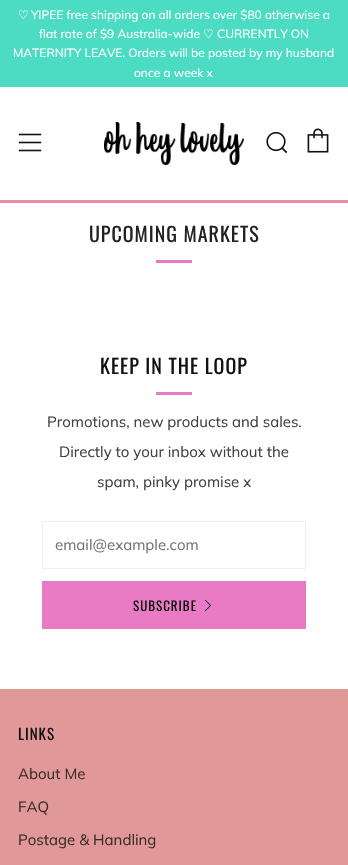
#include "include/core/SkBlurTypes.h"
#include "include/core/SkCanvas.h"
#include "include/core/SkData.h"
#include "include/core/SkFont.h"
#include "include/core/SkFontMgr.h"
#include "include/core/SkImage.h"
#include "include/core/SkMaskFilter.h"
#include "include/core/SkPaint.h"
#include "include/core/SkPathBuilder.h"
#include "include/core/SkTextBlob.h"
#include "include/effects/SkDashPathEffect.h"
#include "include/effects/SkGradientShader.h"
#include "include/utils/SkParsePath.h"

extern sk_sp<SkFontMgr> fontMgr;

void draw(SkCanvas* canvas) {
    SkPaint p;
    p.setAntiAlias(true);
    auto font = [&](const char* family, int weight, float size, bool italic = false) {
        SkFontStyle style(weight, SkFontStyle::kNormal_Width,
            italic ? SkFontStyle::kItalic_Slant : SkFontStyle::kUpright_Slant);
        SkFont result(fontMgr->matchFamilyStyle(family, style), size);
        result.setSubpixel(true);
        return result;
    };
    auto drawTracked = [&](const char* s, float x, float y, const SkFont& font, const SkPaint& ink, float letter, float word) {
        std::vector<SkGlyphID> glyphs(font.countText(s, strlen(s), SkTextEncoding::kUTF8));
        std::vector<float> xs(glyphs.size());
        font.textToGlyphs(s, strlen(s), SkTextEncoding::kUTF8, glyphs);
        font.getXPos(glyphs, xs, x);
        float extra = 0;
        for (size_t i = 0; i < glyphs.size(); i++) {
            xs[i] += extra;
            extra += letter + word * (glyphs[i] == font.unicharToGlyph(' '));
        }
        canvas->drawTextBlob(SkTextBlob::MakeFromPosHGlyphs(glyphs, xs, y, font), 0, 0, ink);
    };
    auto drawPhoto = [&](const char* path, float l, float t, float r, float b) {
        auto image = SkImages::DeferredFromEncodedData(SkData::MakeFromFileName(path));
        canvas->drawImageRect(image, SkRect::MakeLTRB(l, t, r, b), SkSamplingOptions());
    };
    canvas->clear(0xFFFFFFFF);
    p.setColor(0xFF4CDBC3);
    canvas->drawRect(SkRect::MakeLTRB(0, 0, 348, 87), p);
    auto font1 = font("DejaVu Sans", 400, 12);
    p.setColor(0xFFFFFFFF);
    canvas->drawString("♡", 18, 19, font1, p);
    auto font2 = font("Muli", 400, 12);
    canvas->drawString("YIPEE free shipping on all orders over $80 otherwise a", 31, 19, font2, p);
    canvas->drawString("flat rate of $9 Australia-wide", 39, 38, font2, p);
    canvas->drawString("♡", 203, 38, font1, p);
    {
        const struct { const char* s; float x, y; } items[] = {
            {"CURRENTLY ON", 217, 38},
            {"MATERNITY LEAVE. Orders will be posted by my husband", 13, 57},
            {"once a week x", 134, 77},
        };
        for (auto [s, x, y] : items) {
            canvas->drawString(s, x, y, font2, p);
        }
    }
    p.setColor(0xFFE88CA1);
    canvas->drawRect(SkRect::MakeLTRB(0, 200, 348, 203), p);
    drawPhoto("media/1.png", 18, 133, 42, 152);
    drawPhoto("media/2.png", 104, 122, 244, 165);
    drawPhoto("media/3.png", 266, 131, 288, 154);
    drawPhoto("media/4.png", 307, 128, 329, 153);
    auto font3 = font("Oswald", 400, 20);
    p.setColor(0xFF212121);
    drawTracked("UPCOMING MARKETS", 89, 242, font3, p, 1, 0);
    p.setColor(0xFFE97AC4);
    canvas->drawRect(SkRect::MakeLTRB(156, 260, 192, 263), p);
    p.setColor(0xFF111111);
    drawTracked("KEEP IN THE LOOP", 100, 374, font3, p, 1, 0);
    p.setColor(0xFFE97AC4);
    canvas->drawRect(SkRect::MakeLTRB(156, 392, 192, 395), p);
    auto font4 = font("Muli", 400, 15);
    p.setColor(0xFF414141);
    {
        const struct { const char* s; float x, y; } items[] = {
            {"Promotions, new products and sales.", 47, 427},
            {"Directly to your inbox without the", 59, 457},
            {"spam, pinky promise x", 97, 487},
        };
        for (auto [s, x, y] : items) {
            canvas->drawString(s, x, y, font4, p);
        }
    }
    p.setStyle(SkPaint::kStroke_Style);
    p.setStrokeWidth(1);
    p.setColor(0xFFF0F0F0);
    canvas->drawRect(SkRect::MakeLTRB(42.5f, 521.5f, 305.5f, 568.5f), p);
    p.setStyle(SkPaint::kFill_Style);
    p.setColor(0xFF757575);
    canvas->drawString("email@example.com", 55, 550, font4, p);
    p.setColor(0xFFE97AC4);
    canvas->drawRect(SkRect::MakeLTRB(42, 581, 306, 629), p);
    auto font5 = font("Oswald", 400, 13);
    p.setColor(0xFF111111);
    drawTracked("SUBSCRIBE", 133, 611, font5, p, 1, 0);
    drawPhoto("media/5.png", 204, 599, 212, 612);
    p.setColor(0xFFE19898);
    canvas->drawRect(SkRect::MakeLTRB(0, 689, 348, 865), p);
    auto font6 = font("Oswald", 400, 15);
    p.setColor(0xFF111111);
    drawTracked("LINKS", 18, 740, font6, p, 1, 0);
    p.setColor(0xFF3B2C2C);
    {
        const struct { const char* s; float x, y; } items[] = {
            {"About Me", 18, 779},
            {"FAQ", 18, 812},
            {"Postage & Handling", 18, 845},
        };
        for (auto [s, x, y] : items) {
            canvas->drawString(s, x, y, font4, p);
        }
    }
}
